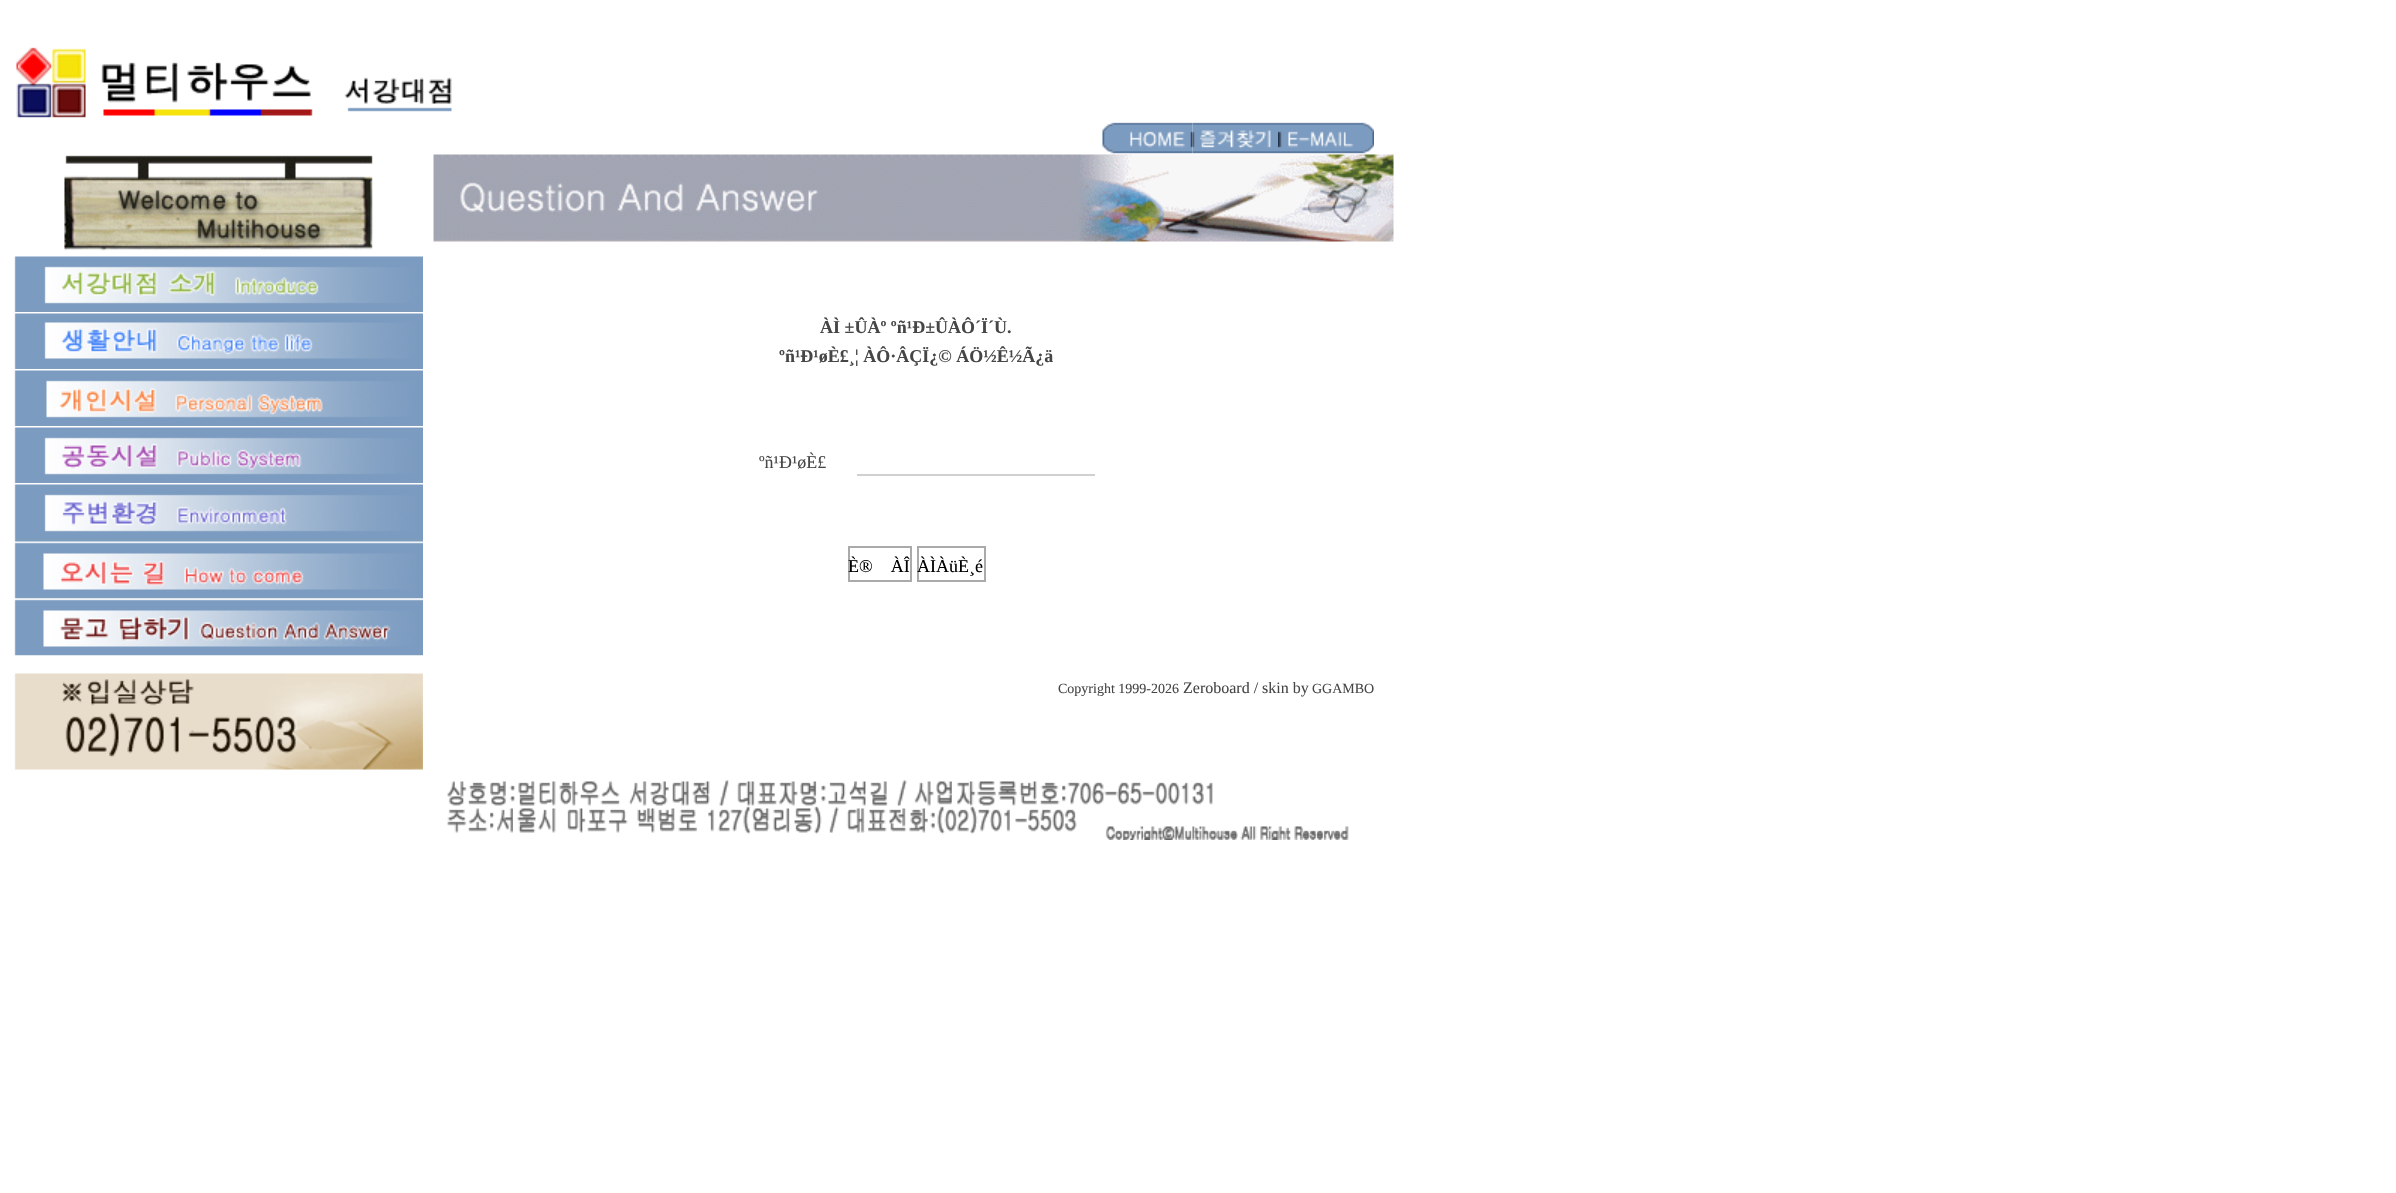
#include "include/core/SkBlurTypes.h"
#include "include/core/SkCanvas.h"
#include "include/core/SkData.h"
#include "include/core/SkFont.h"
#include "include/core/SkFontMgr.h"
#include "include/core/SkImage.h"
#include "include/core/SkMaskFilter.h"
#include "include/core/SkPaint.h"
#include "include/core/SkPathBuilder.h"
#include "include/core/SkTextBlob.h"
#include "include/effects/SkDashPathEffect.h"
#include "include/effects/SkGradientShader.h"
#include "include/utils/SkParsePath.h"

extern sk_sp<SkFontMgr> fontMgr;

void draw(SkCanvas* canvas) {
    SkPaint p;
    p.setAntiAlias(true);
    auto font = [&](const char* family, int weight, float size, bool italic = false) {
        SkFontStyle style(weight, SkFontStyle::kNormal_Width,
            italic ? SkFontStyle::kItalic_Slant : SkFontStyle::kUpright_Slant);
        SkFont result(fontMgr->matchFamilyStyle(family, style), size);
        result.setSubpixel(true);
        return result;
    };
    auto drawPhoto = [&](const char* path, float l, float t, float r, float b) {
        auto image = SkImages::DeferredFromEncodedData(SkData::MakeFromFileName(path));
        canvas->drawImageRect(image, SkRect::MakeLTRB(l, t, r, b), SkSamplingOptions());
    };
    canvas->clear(0xFFFFFFFF);
    drawPhoto("media/1.png", 16, 47, 452, 118);
    drawPhoto("media/2.png", 1102, 122, 1193, 154);
    drawPhoto("media/3.png", 1192, 122, 1278, 154);
    drawPhoto("media/4.png", 1278, 122, 1374, 154);
    drawPhoto("media/5.png", 64, 155, 373, 251);
    drawPhoto("media/6.png", 433, 154, 1394, 242);
    drawPhoto("media/7.png", 14, 256, 423, 312);
    drawPhoto("media/8.png", 14, 313, 423, 369);
    drawPhoto("media/9.png", 14, 370, 423, 426);
    drawPhoto("media/10.png", 14, 427, 423, 483);
    drawPhoto("media/11.png", 14, 484, 423, 540);
    drawPhoto("media/12.png", 14, 540, 423, 599);
    drawPhoto("media/13.png", 14, 598, 423, 656);
    drawPhoto("media/14.png", 14, 655, 423, 770);
    auto font1 = font("Liberation Serif", 700, 18);
    p.setColor(0xFF464646);
    canvas->drawString("ÀÌ ±ÛÀº ºñ¹Ð±ÛÀÔ´Ï´Ù.", 820, 333, font1, p);
    canvas->drawString("ºñ¹Ð¹øÈ£¸¦ ÀÔ·ÂÇÏ¿© ÁÖ½Ê½Ã¿ä", 779, 362, font1, p);
    auto font2 = font("Liberation Serif", 400, 18);
    canvas->drawString("ºñ¹Ð¹øÈ£", 759, 468, font2, p);
    p.setColor(0xFFD0D0D0);
    canvas->drawRect(SkRect::MakeLTRB(857, 474, 1095, 476), p);
    p.setStyle(SkPaint::kStroke_Style);
    p.setStrokeWidth(2);
    p.setColor(0xFFAAAAAA);
    canvas->drawRect(SkRect::MakeLTRB(849, 547, 911, 581), p);
    p.setStyle(SkPaint::kFill_Style);
    p.setColor(0xFF000000);
    canvas->drawString("È®    ÀÎ", 848, 572, font2, p);
    p.setStyle(SkPaint::kStroke_Style);
    p.setColor(0xFFAAAAAA);
    canvas->drawRect(SkRect::MakeLTRB(918, 547, 985, 581), p);
    p.setStyle(SkPaint::kFill_Style);
    p.setColor(0xFF000000);
    canvas->drawString("ÀÌÀüÈ¸é", 917, 572, font2, p);
    auto font3 = font("Liberation Serif", 400, 14);
    p.setColor(0xFF464646);
    canvas->drawString("Copyright 1999-2026", 1058, 693, font3, p);
    auto font4 = font("Liberation Serif", 400, 16);
    canvas->drawString("Zeroboard / skin by", 1183, 693, font4, p);
    canvas->drawString("GGAMBO", 1312, 693, font3, p);
    drawPhoto("media/15.png", 447, 780, 1349, 840);
}
